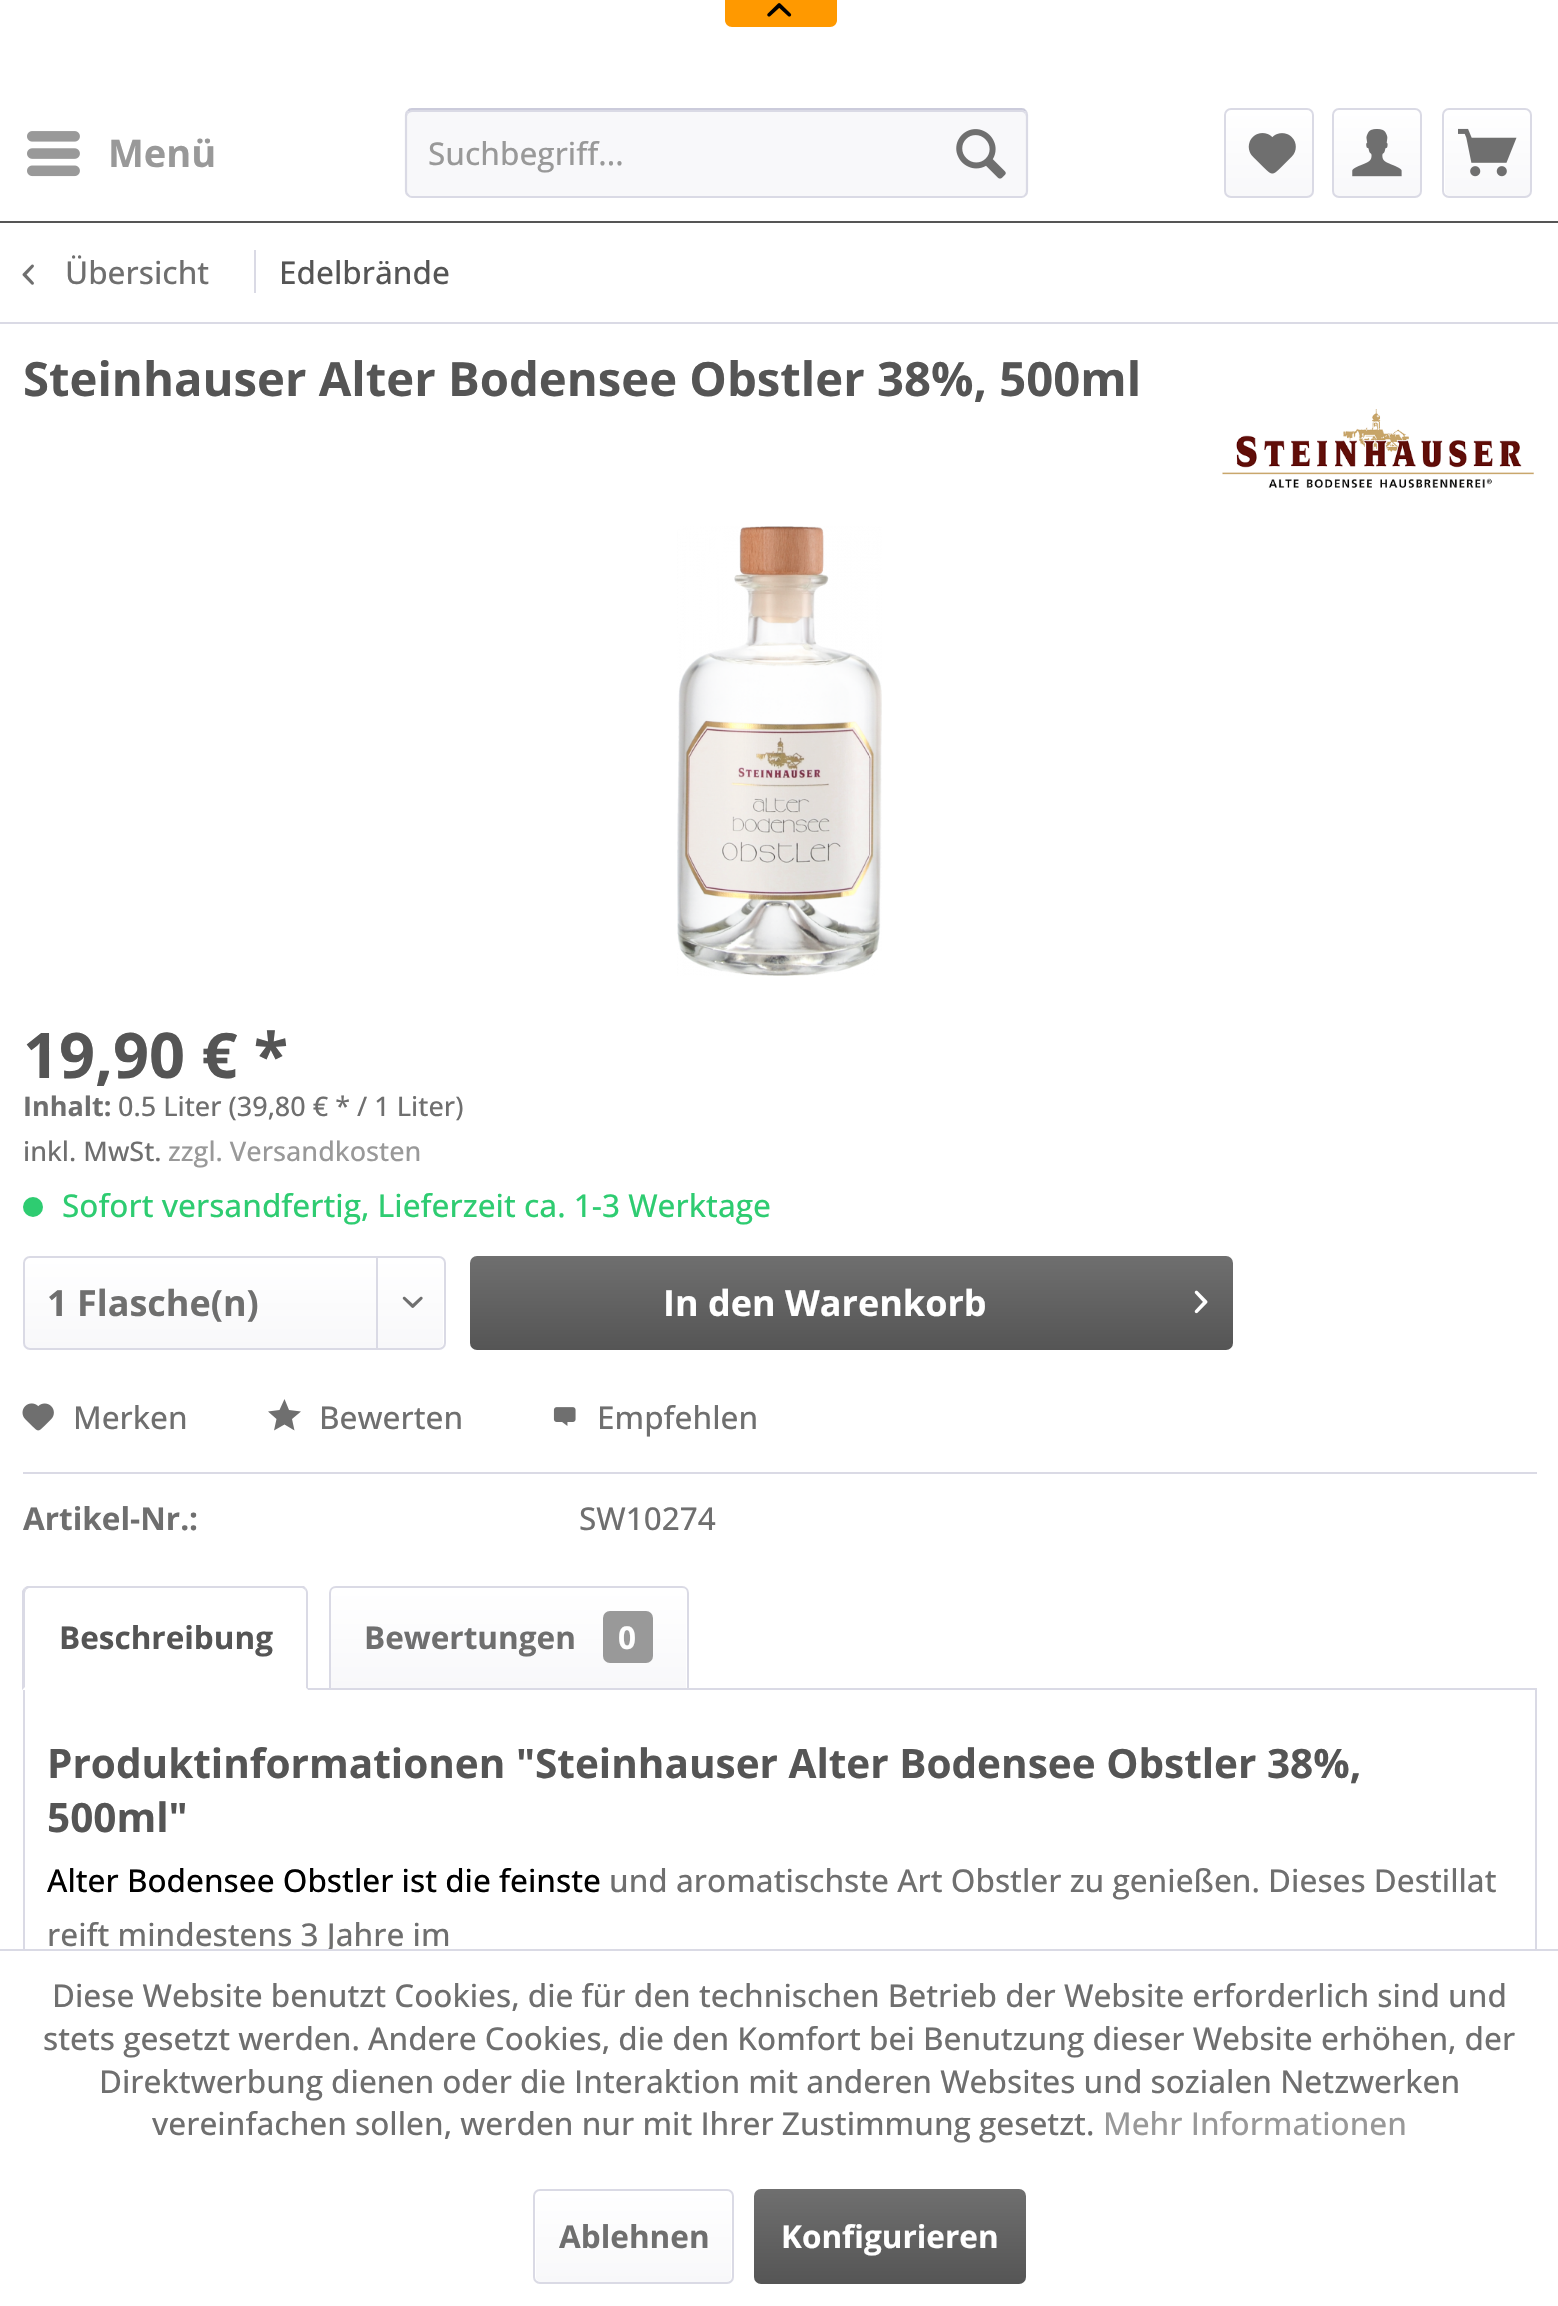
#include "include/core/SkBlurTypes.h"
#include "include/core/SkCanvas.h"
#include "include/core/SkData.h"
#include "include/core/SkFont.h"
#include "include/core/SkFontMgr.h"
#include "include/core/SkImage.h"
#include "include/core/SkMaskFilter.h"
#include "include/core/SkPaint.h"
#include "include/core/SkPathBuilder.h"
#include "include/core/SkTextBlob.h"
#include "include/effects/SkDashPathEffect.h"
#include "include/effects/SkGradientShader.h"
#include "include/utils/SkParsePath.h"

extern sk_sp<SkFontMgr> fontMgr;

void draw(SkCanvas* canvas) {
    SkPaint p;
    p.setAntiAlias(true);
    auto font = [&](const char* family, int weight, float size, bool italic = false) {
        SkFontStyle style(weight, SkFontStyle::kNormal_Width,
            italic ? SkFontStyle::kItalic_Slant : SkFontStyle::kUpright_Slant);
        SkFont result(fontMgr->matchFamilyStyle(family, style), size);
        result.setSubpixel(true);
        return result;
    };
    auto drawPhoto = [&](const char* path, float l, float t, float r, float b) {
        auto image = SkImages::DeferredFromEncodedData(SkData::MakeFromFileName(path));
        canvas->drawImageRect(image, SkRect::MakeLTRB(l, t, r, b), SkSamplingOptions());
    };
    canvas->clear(0xFFFFFFFF);
    p.setColor(0xFFFF9900);
    canvas->drawPath(SkPathBuilder().moveTo(725, -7).lineTo(837, -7).lineTo(837, 20).cubicTo(837, 24, 834, 27, 830, 27).lineTo(732, 27).cubicTo(728, 27, 725, 24, 725, 20).close().detach(), p);
    drawPhoto("media/1.png", 767, 3, 792, 17);
    p.setColor(0xFF555555);
    canvas->drawRect(SkRect::MakeLTRB(0, 221, 1558, 223), p);
    drawPhoto("media/2.png", 27, 131, 80, 177);
    auto font1 = font("Open Sans", 700, 38);
    p.setColor(0xFF999999);
    canvas->drawString("Menü", 108, 167, font1, p);
    p.setColor(0xFFF8F8FA);
    canvas->drawRoundRect(SkRect::MakeLTRB(405, 108, 1028, 198), 7, 7, p);
    p.setColor(0xFFDADAE5);
    canvas->drawPath(SkPathBuilder().moveTo(412, 112).lineTo(1022, 112).cubicTo(1024, 112, 1026, 115, 1026, 117).cubicTo(1026, 114, 1025, 110, 1021, 110).lineTo(412, 110).cubicTo(408, 110, 407, 114, 407, 117).cubicTo(407, 115, 409, 112, 412, 112).close().detach(), p);
    p.setStyle(SkPaint::kStroke_Style);
    p.setStrokeWidth(2.2f);
    p.setColor(0xFFCBCBDB);
    canvas->drawPath(SkPathBuilder().moveTo(408, 111).cubicTo(409, 109.5f, 410.5f, 109, 412, 109).lineTo(1021.5f, 109).cubicTo(1023, 109, 1024.5f, 109.5f, 1025.5f, 111).detach(), p);
    p.setColor(0xFFDADAE5);
    canvas->drawPath(SkPathBuilder().moveTo(1025.5f, 111).cubicTo(1026.5f, 112, 1027, 113.5f, 1027, 115).lineTo(1027, 191).cubicTo(1027, 192.5f, 1026.5f, 194, 1025.5f, 195).cubicTo(1024.5f, 196.5f, 1023, 197, 1021.5f, 197).lineTo(412, 197).cubicTo(410.5f, 197, 409, 196.5f, 408, 195).cubicTo(406.5f, 194, 406, 192.5f, 406, 191).lineTo(406, 115).cubicTo(406, 113.5f, 406.5f, 112, 408, 111).detach(), p);
    auto font2 = font("Open Sans", 500, 31.5f);
    p.setStyle(SkPaint::kFill_Style);
    p.setColor(0xFF999999);
    canvas->drawString("Suchbegriff...", 428, 165, font2, p);
    drawPhoto("media/3.png", 956, 129, 1006, 179);
    {
        const SkColor colors[] = {0xFFFFFFFF, 0xFFF8F8FA};
        const float stops[] = {0, 1};
        const SkPoint ends[] = {{1269, 110}, {1269, 196}};
        p.setShader(SkGradientShader::MakeLinear(ends, colors, stops, 2, SkTileMode::kClamp));
        p.setAlpha(255);
    }
    canvas->drawRoundRect(SkRect::MakeLTRB(1226, 110, 1312, 196), 5, 5, p);
    p.setStyle(SkPaint::kStroke_Style);
    p.setStrokeWidth(2);
    p.setShader(nullptr);
    p.setColor(0xFFDADAE5);
    canvas->drawRoundRect(SkRect::MakeLTRB(1225, 109, 1313, 197), 6, 6, p);
    drawPhoto("media/4.png", 1248, 133, 1296, 174);
    p.setStyle(SkPaint::kFill_Style);
    {
        const SkColor colors[] = {0xFFFFFFFF, 0xFFF8F8FA};
        const float stops[] = {0, 1};
        const SkPoint ends[] = {{1377, 110}, {1377, 196}};
        p.setShader(SkGradientShader::MakeLinear(ends, colors, stops, 2, SkTileMode::kClamp));
        p.setAlpha(255);
    }
    canvas->drawRoundRect(SkRect::MakeLTRB(1334, 110, 1420, 196), 5, 5, p);
    p.setStyle(SkPaint::kStroke_Style);
    p.setShader(nullptr);
    p.setColor(0xFFDADAE5);
    canvas->drawRoundRect(SkRect::MakeLTRB(1333, 109, 1421, 197), 6, 6, p);
    drawPhoto("media/5.png", 1352, 129, 1402, 177);
    p.setStyle(SkPaint::kFill_Style);
    {
        const SkColor colors[] = {0xFFFFFFFF, 0xFFF8F8FA};
        const float stops[] = {0, 1};
        const SkPoint ends[] = {{1487, 110}, {1487, 196}};
        p.setShader(SkGradientShader::MakeLinear(ends, colors, stops, 2, SkTileMode::kClamp));
        p.setAlpha(255);
    }
    canvas->drawRoundRect(SkRect::MakeLTRB(1445, 110, 1530, 196), 5, 5, p);
    p.setStyle(SkPaint::kStroke_Style);
    p.setShader(nullptr);
    p.setColor(0xFFDADAE5);
    canvas->drawRoundRect(SkRect::MakeLTRB(1443, 109, 1531, 197), 6, 6, p);
    drawPhoto("media/6.png", 1458, 128, 1517, 177);
    p.setStyle(SkPaint::kFill_Style);
    canvas->drawRect(SkRect::MakeLTRB(0, 322, 1558, 324), p);
    drawPhoto("media/7.png", 22, 264, 34, 285);
    p.setColor(0xFF6F6F6F);
    canvas->drawString("Übersicht", 65, 284, font2, p);
    p.setColor(0xFFDADAE5);
    canvas->drawRect(SkRect::MakeLTRB(254, 250, 256, 293), p);
    p.setColor(0xFF555555);
    canvas->drawString("Edelbrände", 279, 284, font2, p);
    auto font3 = font("Open Sans", 700, 47.25f);
    canvas->drawString("Steinhauser Alter Bodensee Obstler 38%, 500ml", 23, 396, font3, p);
    drawPhoto("media/8.png", 1222, 409, 1534, 488);
    drawPhoto("media/9.png", 677, 526, 882, 976);
    auto font4 = font("Open Sans", 700, 63);
    canvas->drawString("19,90 € *", 23, 1078, font4, p);
    auto font5 = font("Open Sans", 700, 27);
    p.setColor(0xFF6F6F6F);
    canvas->drawString("Inhalt:", 23, 1116, font5, p);
    auto font6 = font("Open Sans", 500, 27);
    canvas->drawString("0.5 Liter (39,80 € * / 1 Liter)", 118, 1116, font6, p);
    canvas->drawString("inkl. MwSt.", 23, 1161, font6, p);
    p.setColor(0xFF999999);
    canvas->drawString("zzgl. Versandkosten", 168, 1161, font6, p);
    p.setColor(0xFF2ECC71);
    canvas->drawCircle(33, 1207, 10, p);
    canvas->drawString("Sofort versandfertig, Lieferzeit ca. 1-3 Werktage", 62, 1217, font2, p);
    {
        const SkColor colors[] = {0xFFFFFFFF, 0xFFF8F8FA};
        const float stops[] = {0, 1};
        const SkPoint ends[] = {{234, 1258}, {234, 1348}};
        p.setShader(SkGradientShader::MakeLinear(ends, colors, stops, 2, SkTileMode::kClamp));
        p.setAlpha(255);
    }
    canvas->drawRoundRect(SkRect::MakeLTRB(25, 1258, 443, 1348), 5, 5, p);
    p.setStyle(SkPaint::kStroke_Style);
    p.setShader(nullptr);
    p.setColor(0xFFDADAE5);
    canvas->drawRoundRect(SkRect::MakeLTRB(24, 1257, 445, 1349), 6, 6, p);
    auto font7 = font("Open Sans", 700, 36);
    p.setStyle(SkPaint::kFill_Style);
    p.setColor(0xFF6F6F6F);
    canvas->drawString("1 Flasche(n)", 47, 1316, font7, p);
    p.setColor(0xFFDADAE5);
    canvas->drawRect(SkRect::MakeLTRB(376, 1258, 378, 1348), p);
    drawPhoto("media/10.png", 402, 1296, 423, 1308);
    {
        const SkColor colors[] = {0xFF6F6F6F, 0xFF555555};
        const float stops[] = {0, 1};
        const SkPoint ends[] = {{852, 1256}, {852, 1350}};
        p.setShader(SkGradientShader::MakeLinear(ends, colors, stops, 2, SkTileMode::kClamp));
        p.setAlpha(255);
    }
    canvas->drawRoundRect(SkRect::MakeLTRB(470, 1256, 1233, 1350), 7, 7, p);
    p.setShader(nullptr);
    p.setColor(0xFFFFFFFF);
    canvas->drawString("In den Warenkorb", 663, 1316, font7, p);
    drawPhoto("media/11.png", 1194, 1290, 1208, 1314);
    p.setColor(0xFFDADAE5);
    canvas->drawRect(SkRect::MakeLTRB(23, 1472, 1537, 1474), p);
    drawPhoto("media/12.png", 22, 1403, 54, 1431);
    p.setColor(0xFF6F6F6F);
    canvas->drawString("Merken", 73, 1429, font2, p);
    canvas->drawString("Bewerten", 319, 1429, font2, p);
    canvas->drawPath(SkPathBuilder().moveTo(284.5f, 1399).lineTo(279.5f, 1410).lineTo(268, 1411.5f).lineTo(276.5f, 1419).lineTo(274, 1430.5f).lineTo(284.5f, 1424.5f).lineTo(294.5f, 1430.5f).lineTo(292, 1419).lineTo(301, 1411.5f).lineTo(289, 1410).close().detach(), p);
    drawPhoto("media/13.png", 553, 1407, 576, 1426);
    canvas->drawString("Empfehlen", 597, 1429, font2, p);
    auto font8 = font("Open Sans", 700, 31.5f);
    canvas->drawString("Artikel-Nr.:", 23, 1530, font8, p);
    canvas->drawString("SW10274", 579, 1530, font2, p);
    p.setStyle(SkPaint::kStroke_Style);
    p.setColor(0xFFDADAE5);
    canvas->drawRect(SkRect::MakeLTRB(24, 1689, 1536, 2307), p);
    p.setStyle(SkPaint::kFill_Style);
    p.setColor(0xFFFFFFFF);
    canvas->drawPath(SkPathBuilder().moveTo(30, 1586).lineTo(301, 1586).cubicTo(305, 1586, 308, 1589, 308, 1593).lineTo(308, 1690).lineTo(23, 1690).lineTo(23, 1593).cubicTo(23, 1589, 26, 1586, 30, 1586).close().detach(), p);
    p.setColor(0xFFDADAE5);
    canvas->drawPath(SkPathBuilder().moveTo(29, 1588).cubicTo(28, 1588, 27, 1589, 26, 1590).lineTo(24, 1588).lineTo(27, 1586).lineTo(304, 1586).lineTo(306, 1588).lineTo(305, 1590).cubicTo(304, 1589, 303, 1588, 302, 1588).close().detach(), p);
    canvas->drawPath(SkPathBuilder().moveTo(306, 1588).cubicTo(307, 1589, 308, 1591, 308, 1593).lineTo(308, 1690).lineTo(306, 1688).lineTo(306, 1593).cubicTo(306, 1592, 306, 1591, 305, 1590).close().detach(), p);
    p.setColor(0xFFFFFFFF);
    canvas->drawPath(SkPathBuilder().moveTo(308, 1690).lineTo(22, 1690).lineTo(25, 1687).lineTo(25, 1688).lineTo(306, 1688).close().detach(), p);
    p.setColor(0xFFDADAE5);
    canvas->drawPath(SkPathBuilder().moveTo(22, 1690).lineTo(22, 1591).lineTo(24, 1588).lineTo(26, 1590).lineTo(25, 1593).lineTo(25, 1687).close().detach(), p);
    p.setColor(0xFF555555);
    canvas->drawString("Beschreibung", 59, 1649, font8, p);
    {
        const SkColor colors[] = {0xFFFFFFFF, 0xFFF8F8FA};
        const float stops[] = {0, 1};
        const SkPoint ends[] = {{509, 1589}, {509, 1688}};
        p.setShader(SkGradientShader::MakeLinear(ends, colors, stops, 2, SkTileMode::kClamp));
        p.setAlpha(255);
    }
    canvas->drawPath(SkPathBuilder().moveTo(336, 1589).lineTo(681, 1589).cubicTo(684, 1589, 686, 1591, 686, 1594).lineTo(686, 1688).lineTo(331, 1688).lineTo(331, 1594).cubicTo(331, 1591, 333, 1589, 336, 1589).close().detach(), p);
    p.setStyle(SkPaint::kStroke_Style);
    p.setShader(nullptr);
    p.setColor(0xFFDADAE5);
    canvas->drawPath(SkPathBuilder().moveTo(336, 1587).lineTo(682, 1587).cubicTo(685.5f, 1587, 688, 1589.5f, 688, 1593).lineTo(688, 1689).lineTo(330, 1689).lineTo(330, 1593).cubicTo(330, 1589.5f, 332.5f, 1587, 336, 1587).close().detach(), p);
    p.setStyle(SkPaint::kFill_Style);
    p.setColor(0xFF6F6F6F);
    canvas->drawString("Bewertungen", 364, 1649, font8, p);
    p.setColor(0xFF999999);
    canvas->drawRoundRect(SkRect::MakeLTRB(603, 1611, 653, 1663), 7, 7, p);
    p.setColor(0xFFFFFFFF);
    canvas->drawString("0", 618, 1649, font8, p);
    auto font9 = font("Open Sans", 700, 40.5f);
    p.setColor(0xFF555555);
    canvas->drawString("Produktinformationen \"Steinhauser Alter Bodensee Obstler 38%,", 47, 1778, font9, p);
    canvas->drawString("500ml\"", 47, 1832, font9, p);
    p.setColor(0xFF000000);
    canvas->drawString("Alter Bodensee Obstler ist die feinste", 47, 1892, font2, p);
    p.setColor(0xFF6F6F6F);
    canvas->drawString("und aromatischste Art Obstler zu genießen. Dieses Destillat", 609, 1892, font2, p);
    canvas->drawString("reift mindestens 3 Jahre im", 47, 1946, font2, p);
    p.setColor(0xFFFFFFFF);
    canvas->drawRect(SkRect::MakeLTRB(23, 1951, 1537, 2306), p);
    p.setColor(0xFFDADAE5);
    canvas->drawRect(SkRect::MakeLTRB(0, 1949, 1558, 1951), p);
    p.setColor(0xFF6F6F6F);
    {
        const struct { const char* s; float x, y; } items[] = {
            {"Diese Website benutzt Cookies, die für den technischen Betrieb der Website erforderlich sind und", 52, 2007},
            {"stets gesetzt werden. Andere Cookies, die den Komfort bei Benutzung dieser Website erhöhen, der", 43, 2050},
            {"Direktwerbung dienen oder die Interaktion mit anderen Websites und sozialen Netzwerken", 99, 2093},
            {"vereinfachen sollen, werden nur mit Ihrer Zustimmung gesetzt.", 152, 2135},
        };
        for (auto [s, x, y] : items) {
            canvas->drawString(s, x, y, font2, p);
        }
    }
    p.setColor(0xFF999999);
    canvas->drawString("Mehr Informationen", 1103, 2135, font2, p);
    {
        const SkColor colors[] = {0xFFFFFFFF, 0xFFF8F8FA};
        const float stops[] = {0, 1};
        const SkPoint ends[] = {{633, 2192}, {633, 2282}};
        p.setShader(SkGradientShader::MakeLinear(ends, colors, stops, 2, SkTileMode::kClamp));
        p.setAlpha(255);
    }
    canvas->drawRoundRect(SkRect::MakeLTRB(536, 2192, 731, 2282), 5, 5, p);
    p.setStyle(SkPaint::kStroke_Style);
    p.setShader(nullptr);
    p.setColor(0xFFDADAE5);
    canvas->drawRoundRect(SkRect::MakeLTRB(534, 2190, 733, 2283), 6, 6, p);
    p.setStyle(SkPaint::kFill_Style);
    p.setColor(0xFF6F6F6F);
    canvas->drawString("Ablehnen", 559, 2248, font8, p);
    {
        const SkColor colors[] = {0xFF6F6F6F, 0xFF555555};
        const float stops[] = {0, 1};
        const SkPoint ends[] = {{890, 2189}, {890, 2284}};
        p.setShader(SkGradientShader::MakeLinear(ends, colors, stops, 2, SkTileMode::kClamp));
        p.setAlpha(255);
    }
    canvas->drawRoundRect(SkRect::MakeLTRB(754, 2189, 1026, 2284), 7, 7, p);
    p.setShader(nullptr);
    p.setColor(0xFFFFFFFF);
    canvas->drawString("Konfigurieren", 781, 2248, font8, p);
}
